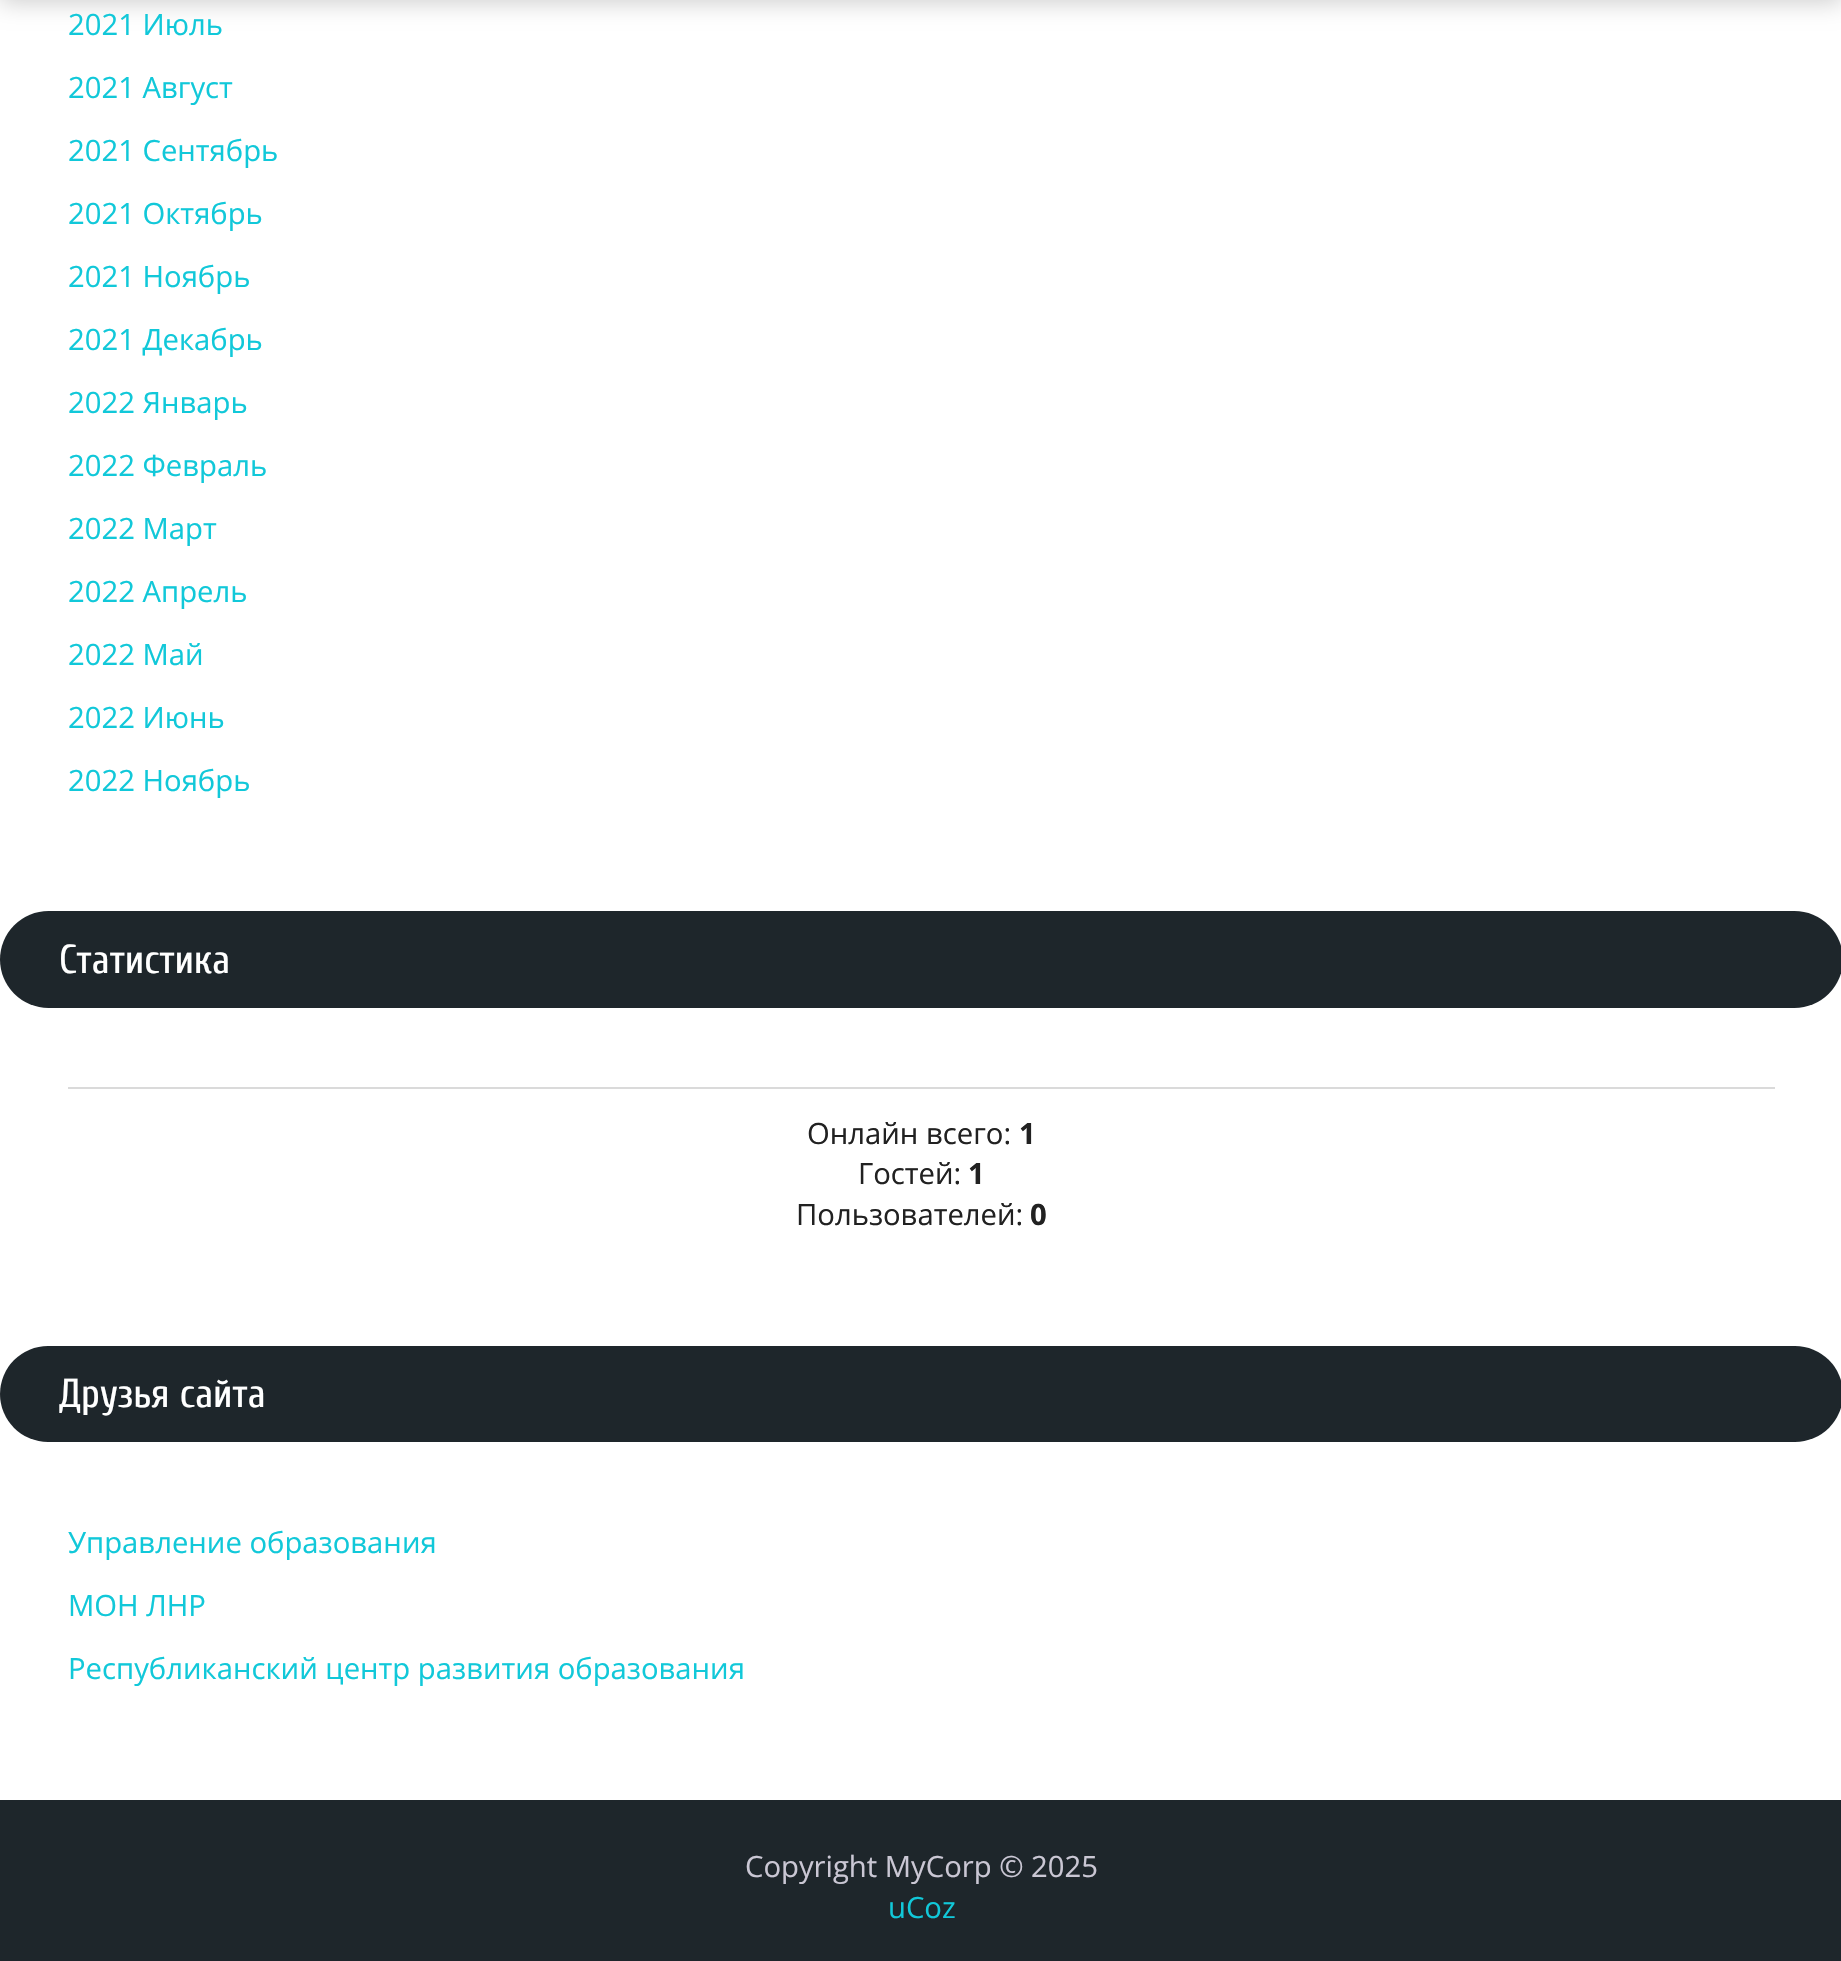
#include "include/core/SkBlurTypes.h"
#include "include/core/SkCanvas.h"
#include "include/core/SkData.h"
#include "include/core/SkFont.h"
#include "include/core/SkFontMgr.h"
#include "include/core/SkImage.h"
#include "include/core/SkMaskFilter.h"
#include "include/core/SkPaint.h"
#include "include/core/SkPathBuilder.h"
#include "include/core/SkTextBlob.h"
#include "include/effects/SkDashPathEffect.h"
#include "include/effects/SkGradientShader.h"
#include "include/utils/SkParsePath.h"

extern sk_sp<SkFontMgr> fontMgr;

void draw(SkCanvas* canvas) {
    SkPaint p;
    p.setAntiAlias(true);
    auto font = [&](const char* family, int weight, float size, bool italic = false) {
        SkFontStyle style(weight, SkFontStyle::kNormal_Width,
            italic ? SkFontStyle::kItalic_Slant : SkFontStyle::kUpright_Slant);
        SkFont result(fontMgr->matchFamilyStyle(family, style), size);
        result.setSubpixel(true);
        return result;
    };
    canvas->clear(0xFFFFFFFF);
    p.setColor(0x33000000);
    p.setMaskFilter(SkMaskFilter::MakeBlur(kNormal_SkBlurStyle, 12.5f));
    canvas->drawRect(SkRect::MakeLTRB(0, -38, 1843, 2), p);
    p.setMaskFilter(nullptr);
    auto font1 = font("Open Sans", 400, 29.25f);
    p.setColor(0xFF11C8D9);
    {
        const struct { const char* s; float x, y; } items[] = {
            {"2021 Июль", 68, 35},
            {"2021 Август", 68, 98},
            {"2021 Сентябрь", 68, 161},
            {"2021 Октябрь", 68, 224},
            {"2021 Ноябрь", 68, 287},
            {"2021 Декабрь", 68, 350},
            {"2022 Январь", 68, 413},
            {"2022 Февраль", 68, 476},
            {"2022 Март", 68, 539},
            {"2022 Апрель", 68, 602},
            {"2022 Май", 68, 665},
            {"2022 Июнь", 68, 728},
            {"2022 Ноябрь", 68, 791},
        };
        for (auto [s, x, y] : items) {
            canvas->drawString(s, x, y, font1, p);
        }
    }
    p.setColor(0xFF1E262B);
    canvas->drawRoundRect(SkRect::MakeLTRB(0, 911, 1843, 1008), 48.5f, 48.5f, p);
    auto font2 = font("Cuprum", 400, 40.5f);
    p.setColor(0xFFFFFFFF);
    canvas->drawString("Статистика", 59, 973, font2, p);
    p.setColor(0xFFDADADA);
    canvas->drawRect(SkRect::MakeLTRB(68, 1087, 1775, 1089), p);
    p.setColor(0xFF212121);
    canvas->drawString("Онлайн всего:", 807, 1144, font1, p);
    auto font3 = font("Open Sans", 700, 29.25f);
    canvas->drawString("1", 1019, 1144, font3, p);
    canvas->drawString("Гостей:", 858, 1184, font1, p);
    canvas->drawString("1", 968, 1184, font3, p);
    canvas->drawString("Пользователей:", 796, 1225, font1, p);
    canvas->drawString("0", 1030, 1225, font3, p);
    p.setColor(0xFF1E262B);
    canvas->drawRoundRect(SkRect::MakeLTRB(0, 1346, 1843, 1442), 48, 48, p);
    p.setColor(0xFFFFFFFF);
    canvas->drawString("Друзья сайта", 59, 1407, font2, p);
    p.setColor(0xFF11C8D9);
    {
        const struct { const char* s; float x, y; } items[] = {
            {"Управление образования", 68, 1553},
            {"МОН ЛНР", 68, 1616},
            {"Республиканский центр развития образования", 68, 1679},
        };
        for (auto [s, x, y] : items) {
            canvas->drawString(s, x, y, font1, p);
        }
    }
    p.setColor(0xFF1E262B);
    canvas->drawRect(SkRect::MakeLTRB(0, 1800, 1841, 1961), p);
    p.setColor(0xFFCAC7D4);
    canvas->drawString("Copyright MyCorp © 2025", 745, 1877, font1, p);
    p.setColor(0xFF11C8D9);
    canvas->drawString("uCoz", 888, 1918, font1, p);
}
